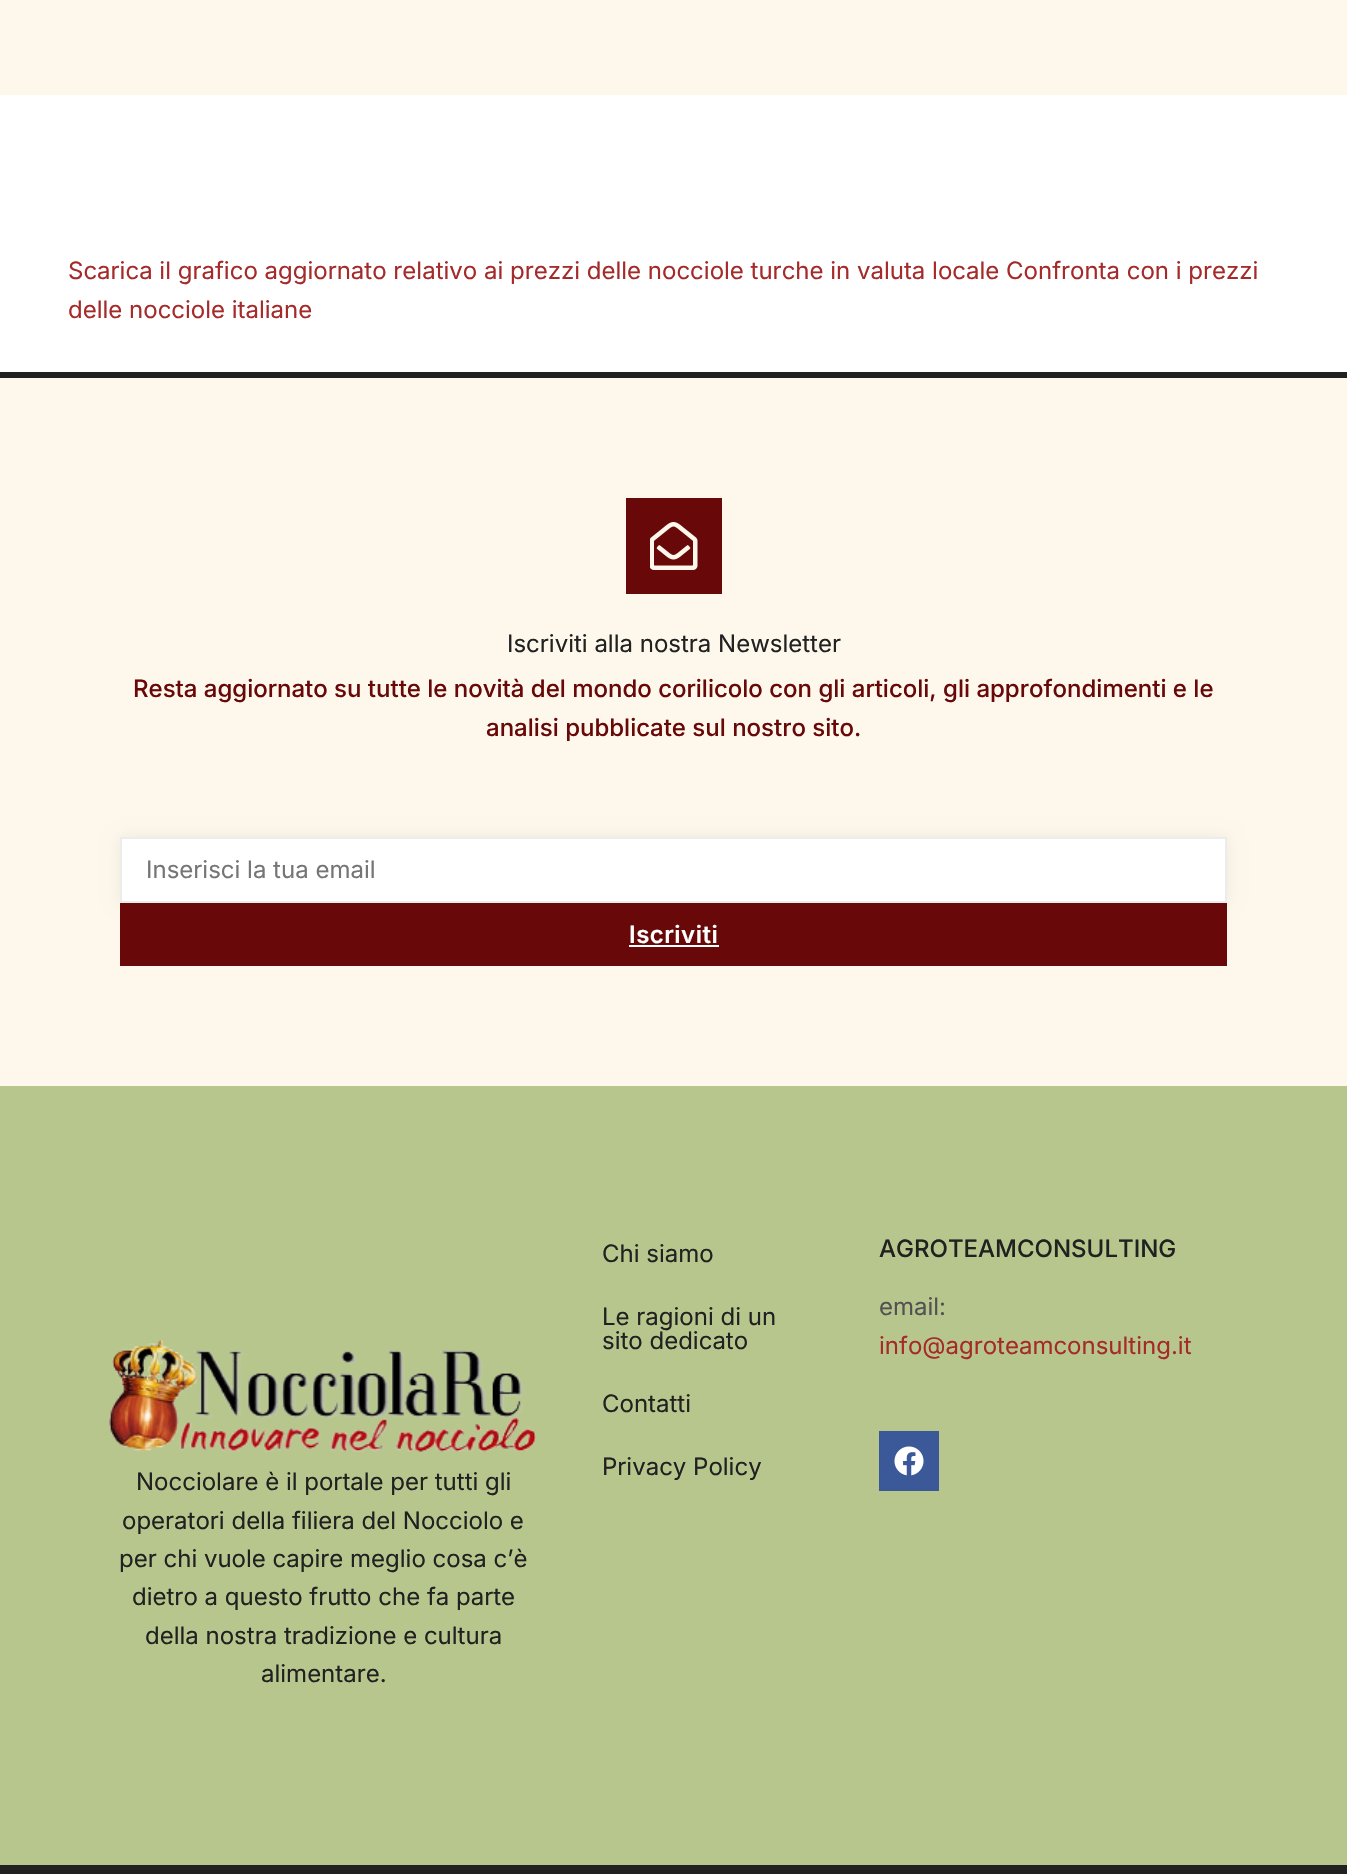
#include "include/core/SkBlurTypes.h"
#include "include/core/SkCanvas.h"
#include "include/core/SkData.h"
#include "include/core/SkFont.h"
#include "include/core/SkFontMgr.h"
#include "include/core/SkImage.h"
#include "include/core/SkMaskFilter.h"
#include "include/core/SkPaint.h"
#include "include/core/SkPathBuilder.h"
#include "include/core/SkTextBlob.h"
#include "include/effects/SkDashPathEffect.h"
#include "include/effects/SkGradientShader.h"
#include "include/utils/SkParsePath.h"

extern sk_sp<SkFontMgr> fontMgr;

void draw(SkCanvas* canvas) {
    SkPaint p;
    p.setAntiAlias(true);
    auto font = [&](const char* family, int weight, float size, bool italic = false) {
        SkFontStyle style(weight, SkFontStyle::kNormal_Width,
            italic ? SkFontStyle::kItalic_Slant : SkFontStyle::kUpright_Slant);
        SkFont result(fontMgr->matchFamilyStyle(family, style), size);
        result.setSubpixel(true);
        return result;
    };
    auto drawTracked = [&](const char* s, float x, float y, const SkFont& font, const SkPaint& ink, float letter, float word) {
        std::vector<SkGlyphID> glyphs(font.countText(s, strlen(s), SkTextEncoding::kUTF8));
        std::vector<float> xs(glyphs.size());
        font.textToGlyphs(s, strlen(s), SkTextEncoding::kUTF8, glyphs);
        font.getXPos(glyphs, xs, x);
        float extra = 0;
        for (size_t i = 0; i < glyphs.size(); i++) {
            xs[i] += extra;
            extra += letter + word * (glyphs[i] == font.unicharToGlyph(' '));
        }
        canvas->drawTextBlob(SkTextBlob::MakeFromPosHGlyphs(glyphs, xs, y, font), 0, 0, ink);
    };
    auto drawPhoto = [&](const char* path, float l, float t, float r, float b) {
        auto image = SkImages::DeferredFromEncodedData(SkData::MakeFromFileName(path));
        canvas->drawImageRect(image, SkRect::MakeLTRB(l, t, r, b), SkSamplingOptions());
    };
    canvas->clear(0xFFFFFFFF);
    p.setColor(0xFFFDF8EB);
    canvas->drawRect(SkRect::MakeLTRB(0, 0, 1347, 95), p);
    auto font1 = font("Inter", 400, 24);
    p.setColor(0xFFA52A2A);
    canvas->drawString("Scarica il grafico aggiornato relativo ai prezzi delle nocciole turche in valuta locale Confronta con i prezzi", 68, 279, font1, p);
    canvas->drawString("delle nocciole italiane", 68, 318, font1, p);
    {
        const struct { float l, t, r, b; SkColor color; } items[] = {
            {0, 378, 1347, 1086, 0xFFFDF8EB},
            {0, 372, 1347, 378, 0xFF212121},
            {626, 498, 722, 594, 0xFF690808},
        };
        for (auto [l, t, r, b, color] : items) {
            p.setColor(color);
            canvas->drawRect(SkRect::MakeLTRB(l, t, r, b), p);
        }
    }
    drawPhoto("media/1.png", 650, 522, 698, 570);
    p.setColor(0xFF212121);
    canvas->drawString("Iscriviti alla nostra Newsletter", 507, 652, font1, p);
    auto font2 = font("Inter", 500, 24);
    p.setColor(0xFF690808);
    canvas->drawString("Resta aggiornato su tutte le novità del mondo corilicolo con gli articoli, gli approfondimenti e le", 133, 697, font2, p);
    canvas->drawString("analisi pubblicate sul nostro sito.", 486, 736, font2, p);
    p.setColor(0x0F000000);
    p.setMaskFilter(SkMaskFilter::MakeBlur(kNormal_SkBlurStyle, 7.5f));
    canvas->drawRect(SkRect::MakeLTRB(120, 837, 1227, 903), p);
    p.setMaskFilter(nullptr);
    p.setColor(0xFFFFFFFF);
    canvas->drawRect(SkRect::MakeLTRB(121, 838, 1226, 902), p);
    p.setStyle(SkPaint::kStroke_Style);
    p.setStrokeWidth(2);
    p.setColor(0xFFEDECEC);
    canvas->drawRect(SkRect::MakeLTRB(121, 838, 1226, 902), p);
    p.setStyle(SkPaint::kFill_Style);
    p.setColor(0xFF757575);
    canvas->drawString("Inserisci la tua email", 146, 878, font1, p);
    p.setColor(0xFF690808);
    canvas->drawRect(SkRect::MakeLTRB(120, 903, 1227, 966), p);
    auto font3 = font("Inter", 600, 24);
    p.setColor(0xFFFFFFFF);
    drawTracked("Iscriviti", 629, 943, font3, p, 0.5f, 0);
    canvas->drawRect(SkRect::MakeLTRB(629, 945, 719, 947), p);
    p.setColor(0xFFB7C68C);
    canvas->drawRect(SkRect::MakeLTRB(0, 1086, 1347, 1865), p);
    p.setColor(0xFF212121);
    {
        const struct { const char* s; float x, y; } items[] = {
            {"Chi siamo", 602, 1262},
            {"Le ragioni di un", 602, 1325},
            {"sito dedicato", 602, 1349},
            {"Contatti", 602, 1412},
            {"Privacy Policy", 602, 1475},
        };
        for (auto [s, x, y] : items) {
            canvas->drawString(s, x, y, font1, p);
        }
    }
    canvas->drawString("AGROTEAMCONSULTING", 879, 1257, font2, p);
    p.setColor(0xFF525252);
    canvas->drawString("email:", 879, 1315, font1, p);
    p.setColor(0xFFA52A2A);
    canvas->drawString("info@agroteamconsulting.it", 879, 1354, font1, p);
    p.setColor(0xFF3B5998);
    canvas->drawRect(SkRect::MakeLTRB(879, 1431, 939, 1491), p);
    drawPhoto("media/2.png", 894, 1446, 924, 1476);
    drawPhoto("media/3.png", 109, 1340, 536, 1452);
    p.setColor(0xFF212121);
    {
        const struct { const char* s; float x, y; } items[] = {
            {"Nocciolare è il portale per tutti gli", 136, 1490},
            {"operatori della filiera del Nocciolo e", 122, 1529},
            {"per chi vuole capire meglio cosa c’è", 119, 1567},
            {"dietro a questo frutto che fa parte", 132, 1605},
            {"della nostra tradizione e cultura", 145, 1644},
            {"alimentare.", 261, 1682},
        };
        for (auto [s, x, y] : items) {
            canvas->drawString(s, x, y, font1, p);
        }
    }
    canvas->drawRect(SkRect::MakeLTRB(0, 1865, 1347, 1874), p);
}
